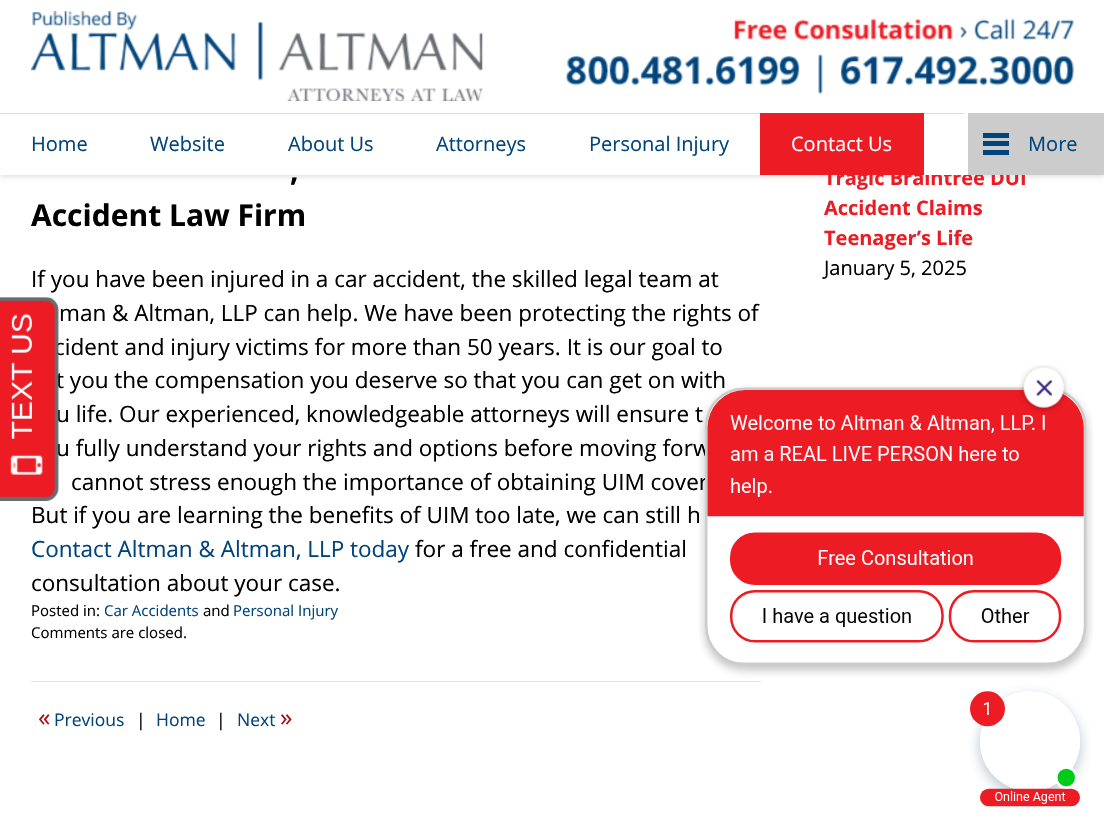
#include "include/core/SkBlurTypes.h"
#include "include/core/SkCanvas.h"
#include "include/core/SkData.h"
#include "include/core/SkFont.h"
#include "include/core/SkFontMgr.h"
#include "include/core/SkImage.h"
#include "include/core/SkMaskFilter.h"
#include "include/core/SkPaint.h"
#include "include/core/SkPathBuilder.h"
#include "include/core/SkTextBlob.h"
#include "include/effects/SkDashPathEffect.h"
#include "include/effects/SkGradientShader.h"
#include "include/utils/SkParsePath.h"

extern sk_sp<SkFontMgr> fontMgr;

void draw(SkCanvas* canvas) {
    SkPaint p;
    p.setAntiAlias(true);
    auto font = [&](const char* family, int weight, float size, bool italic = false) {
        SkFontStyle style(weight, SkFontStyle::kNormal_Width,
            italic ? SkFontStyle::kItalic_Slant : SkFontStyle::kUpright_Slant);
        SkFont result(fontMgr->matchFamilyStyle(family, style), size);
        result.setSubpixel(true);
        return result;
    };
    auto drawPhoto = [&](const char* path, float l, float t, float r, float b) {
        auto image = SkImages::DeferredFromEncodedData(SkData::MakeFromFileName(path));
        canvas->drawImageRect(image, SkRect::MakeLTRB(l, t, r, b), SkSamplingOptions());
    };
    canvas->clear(0xFFFFFFFF);
    auto font1 = font("Open Sans", 400, 22.5f);
    p.setColor(0xFF000000);
    {
        const struct { const char* s; float x, y; } items[] = {
            {"cident and injury victims for more than 50 years. It is our goal to", 54, 355},
            {"t you the compensation you deserve so that you can get on with", 56, 388},
            {"u life. Our experienced, knowledgeable attorneys will ensure t", 56, 422},
            {"u fully understand your rights and options before moving forw", 56, 456},
        };
        for (auto [s, x, y] : items) {
            canvas->drawString(s, x, y, font1, p);
        }
    }
    drawPhoto("media/1.png", 0, 297, 59, 501);
    p.setColor(0x26000000);
    p.setMaskFilter(SkMaskFilter::MakeBlur(kNormal_SkBlurStyle, 3));
    canvas->drawRect(SkRect::MakeLTRB(0, 1, 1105, 176), p);
    p.setMaskFilter(nullptr);
    auto font2 = font("Open Sans", 700, 20);
    p.setColor(0xFFED1C24);
    canvas->drawString("Tragic Braintree DUI", 824, 185, font2, p);
    p.setColor(0xFFFFFFFF);
    canvas->drawRect(SkRect::MakeLTRB(0, 0, 1104, 175), p);
    drawPhoto("media/2.png", 31, 11, 483, 101);
    drawPhoto("media/3.png", 566, 18, 1074, 95);
    p.setColor(0xFFDDDDDD);
    canvas->drawRect(SkRect::MakeLTRB(0, 113, 964, 114), p);
    auto font3 = font("Open Sans", 400, 20);
    p.setColor(0xFF00447C);
    {
        const struct { const char* s; float x, y; } items[] = {
            {"Home", 31, 151},
            {"Website", 150, 151},
            {"About Us", 288, 151},
            {"Attorneys", 436, 151},
            {"Personal Injury", 589, 151},
        };
        for (auto [s, x, y] : items) {
            canvas->drawString(s, x, y, font3, p);
        }
    }
    p.setColor(0xFFED1C24);
    canvas->drawRect(SkRect::MakeLTRB(760, 113, 924, 175), p);
    p.setColor(0xFFFFFFFF);
    canvas->drawString("Contact Us", 791, 151, font3, p);
    {
        const struct { float l, t, r, b; SkColor color; } items[] = {
            {968, 113, 1104, 175, 0xFFCCCCCC},
            {983, 150, 1009, 155, 0xFF00447C},
            {983, 141, 1009, 146, 0xFF00447C},
            {983, 133, 1009, 138, 0xFF00447C},
        };
        for (auto [l, t, r, b, color] : items) {
            p.setColor(color);
            canvas->drawRect(SkRect::MakeLTRB(l, t, r, b), p);
        }
    }
    canvas->drawString("More", 1028, 151, font3, p);
    p.setColor(0xFFE5E5E5);
    canvas->drawRect(SkRect::MakeLTRB(31, 681, 761, 682), p);
    auto font4 = font("Open Sans", 700, 30);
    p.setColor(0xFF000000);
    canvas->drawString(",", 290, 181, font4, p);
    canvas->drawString("Accident Law Firm", 31, 226, font4, p);
    {
        const struct { const char* s; float x, y; } items[] = {
            {"If you have been injured in a car accident, the skilled legal team at", 31, 287},
            {"man & Altman, LLP can help. We have been protecting the rights of", 59, 321},
            {"cannot stress enough the importance of obtaining UIM cover", 71, 490},
            {"But if you are learning the benefits of UIM too late, we can still h", 31, 523},
        };
        for (auto [s, x, y] : items) {
            canvas->drawString(s, x, y, font1, p);
        }
    }
    p.setColor(0xFF00447C);
    canvas->drawString("Contact Altman & Altman, LLP today", 31, 557, font1, p);
    p.setColor(0xFF000000);
    canvas->drawString("for a free and confidential", 415, 557, font1, p);
    canvas->drawString("consultation about your case.", 31, 591, font1, p);
    auto font5 = font("Open Sans", 400, 15);
    canvas->drawString("Posted in:", 31, 616, font5, p);
    p.setColor(0xFF00447C);
    canvas->drawString("Car Accidents", 104, 616, font5, p);
    p.setColor(0xFF000000);
    canvas->drawString("and", 203, 616, font5, p);
    p.setColor(0xFF00447C);
    canvas->drawString("Personal Injury", 233, 616, font5, p);
    p.setColor(0xFF000000);
    canvas->drawString("Comments are closed.", 31, 638, font5, p);
    auto font6 = font("Open Sans", 400, 25);
    p.setColor(0xFFAF0E14);
    canvas->drawString("«", 38, 726, font6, p);
    auto font7 = font("Open Sans", 400, 17.5f);
    p.setColor(0xFF00447C);
    canvas->drawString("Previous", 54, 726, font7, p);
    p.setColor(0xFF000000);
    canvas->drawString("|", 136, 726, font7, p);
    p.setColor(0xFF00447C);
    canvas->drawString("Home", 156, 726, font7, p);
    p.setColor(0xFF000000);
    canvas->drawString("|", 216, 726, font7, p);
    p.setColor(0xFF00447C);
    canvas->drawString("Next", 237, 726, font7, p);
    p.setColor(0xFFAF0E14);
    canvas->drawString("»", 280, 726, font6, p);
    p.setColor(0xFFED1C24);
    canvas->drawString("Accident Claims", 824, 215, font2, p);
    canvas->drawString("Teenager’s Life", 824, 245, font2, p);
    p.setColor(0xFF000000);
    canvas->drawString("January 5, 2025", 824, 275, font3, p);
    drawPhoto("media/4.png", 699, 365, 1093, 807);
}
